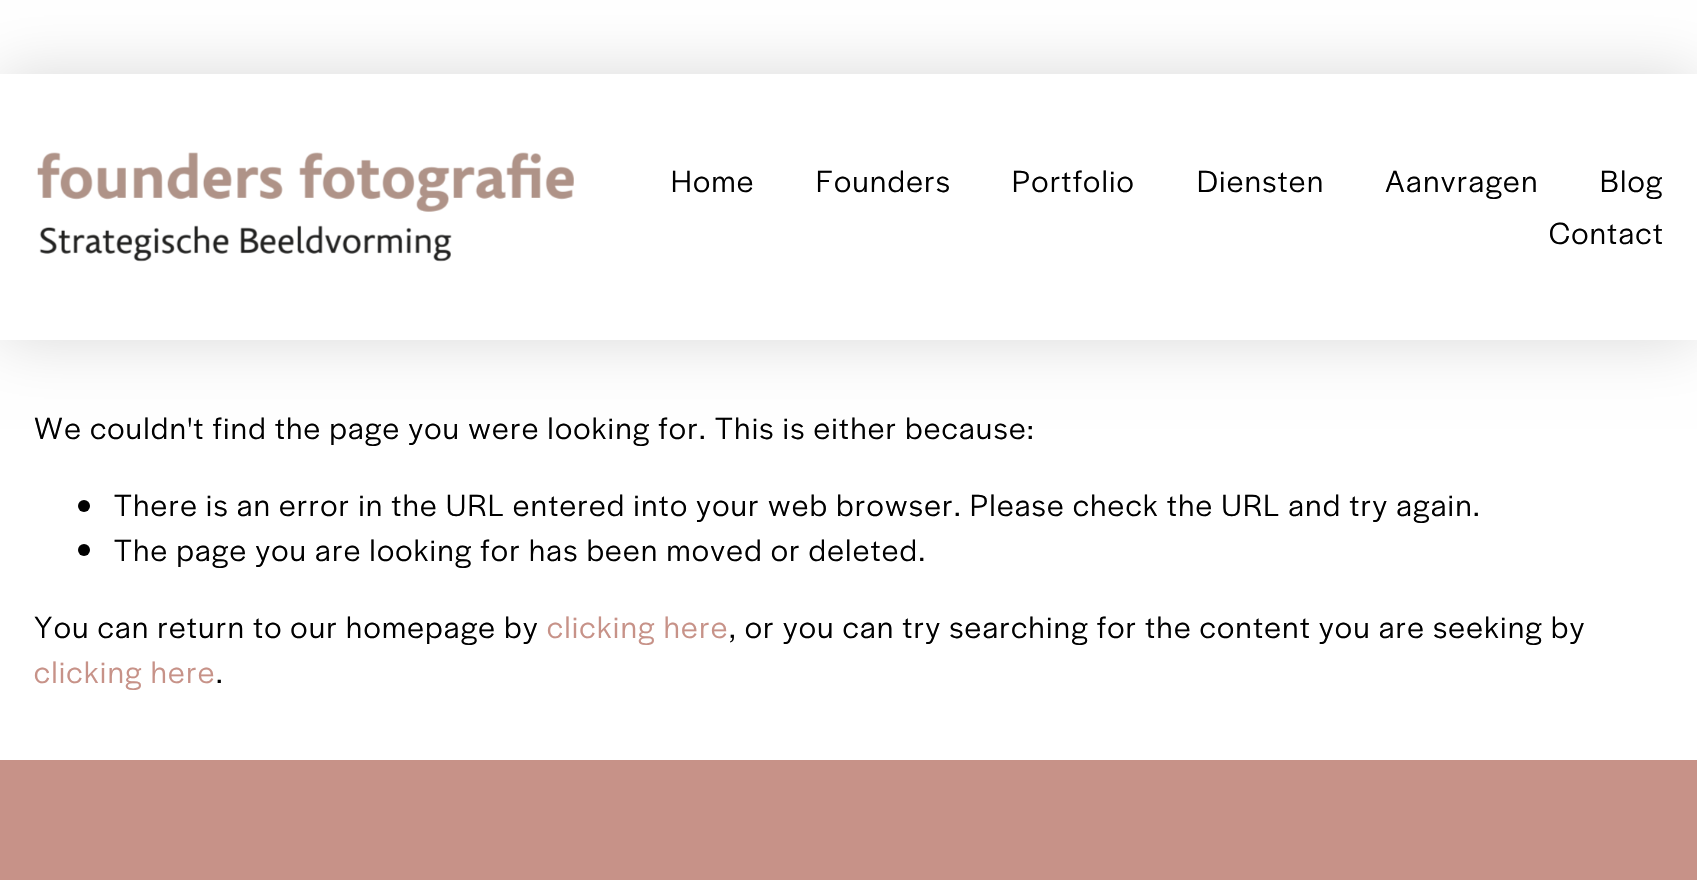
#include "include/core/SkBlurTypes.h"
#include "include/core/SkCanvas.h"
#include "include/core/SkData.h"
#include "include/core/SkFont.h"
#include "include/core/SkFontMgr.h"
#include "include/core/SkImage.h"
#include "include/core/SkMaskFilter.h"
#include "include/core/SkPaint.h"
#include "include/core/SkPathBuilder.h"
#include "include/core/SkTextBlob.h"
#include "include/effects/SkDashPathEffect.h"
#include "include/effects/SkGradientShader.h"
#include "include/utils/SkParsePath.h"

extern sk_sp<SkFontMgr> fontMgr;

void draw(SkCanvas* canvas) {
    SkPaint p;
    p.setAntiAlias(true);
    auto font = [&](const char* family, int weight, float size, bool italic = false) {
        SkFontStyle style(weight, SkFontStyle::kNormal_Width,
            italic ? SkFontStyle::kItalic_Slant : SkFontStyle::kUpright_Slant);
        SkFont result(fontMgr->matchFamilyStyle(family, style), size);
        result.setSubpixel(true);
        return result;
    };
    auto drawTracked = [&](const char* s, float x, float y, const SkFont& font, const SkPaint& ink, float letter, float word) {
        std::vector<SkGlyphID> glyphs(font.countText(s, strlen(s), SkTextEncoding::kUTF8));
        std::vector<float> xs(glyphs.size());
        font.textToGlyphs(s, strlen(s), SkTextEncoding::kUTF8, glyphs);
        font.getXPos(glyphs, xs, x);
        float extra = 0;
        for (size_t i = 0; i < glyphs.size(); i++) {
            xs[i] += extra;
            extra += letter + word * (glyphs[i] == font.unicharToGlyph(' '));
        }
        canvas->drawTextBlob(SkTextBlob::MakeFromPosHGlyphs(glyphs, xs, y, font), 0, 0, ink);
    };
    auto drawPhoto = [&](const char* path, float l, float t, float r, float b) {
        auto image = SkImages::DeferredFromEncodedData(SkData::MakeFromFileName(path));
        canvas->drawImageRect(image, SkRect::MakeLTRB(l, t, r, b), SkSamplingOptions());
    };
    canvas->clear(0xFFFFFFFF);
    canvas->save();
    canvas->clipPath(SkPathBuilder(SkPathFillType::kEvenOdd).moveTo(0, 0).lineTo(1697, 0).lineTo(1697, 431).lineTo(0, 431).close().moveTo(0, 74).lineTo(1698, 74).lineTo(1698, 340).lineTo(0, 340).close().detach(), true);
    p.setColor(0xFFD9D9D9);
    p.setMaskFilter(SkMaskFilter::MakeBlur(kNormal_SkBlurStyle, 30));
    canvas->drawRect(SkRect::MakeLTRB(0, 74, 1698, 340), p);
    p.setMaskFilter(nullptr);
    canvas->restore();
    drawPhoto("media/1.png", 37, 152, 574, 262);
    auto font1 = font("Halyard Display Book", 400, 32);
    p.setColor(0xFF000000);
    {
        const struct { const char* s; float x, y; } items[] = {
            {"Home", 671, 192},
            {"Founders", 816, 192},
            {"Portfolio", 1012, 192},
            {"Diensten", 1197, 192},
            {"Aanvragen", 1385, 192},
            {"Blog", 1600, 192},
            {"Contact", 1549, 244},
            {"We couldn't find the page you were looking for. This is either because:", 34, 439},
        };
        for (auto [s, x, y] : items) {
            drawTracked(s, x, y, font1, p, 1.6f, 0);
        }
    }
    canvas->drawCircle(84, 506, 6, p);
    drawTracked("There is an error in the URL entered into your web browser. Please check the URL and try again.", 114, 516, font1, p, 1.6f, 0);
    canvas->drawCircle(84, 550, 6, p);
    drawTracked("The page you are looking for has been moved or deleted.", 114, 561, font1, p, 1.6f, 0);
    drawTracked("You can return to our homepage by", 34, 638, font1, p, 1.6f, 0);
    p.setColor(0xFFC79288);
    drawTracked("clicking here", 547, 638, font1, p, 1.6f, 0);
    p.setColor(0xFF000000);
    drawTracked(", or you can try searching for the content you are seeking by", 729, 638, font1, p, 1.6f, 0);
    p.setColor(0xFFC79288);
    drawTracked("clicking here", 34, 683, font1, p, 1.6f, 0);
    p.setColor(0xFF000000);
    drawTracked(".", 216, 683, font1, p, 1.6f, 0);
    p.setColor(0xFFC79288);
    canvas->drawRect(SkRect::MakeLTRB(0, 760, 1697, 880), p);
}
